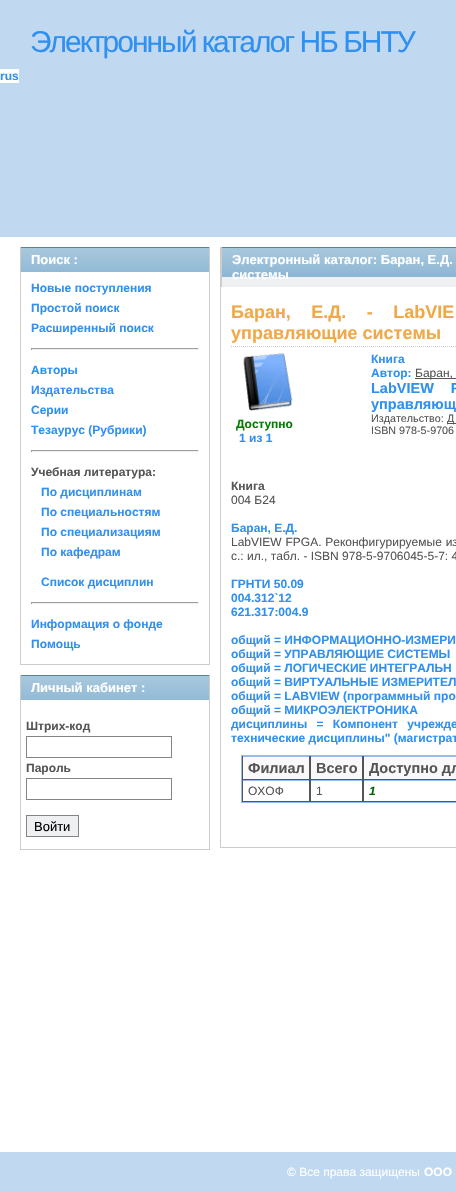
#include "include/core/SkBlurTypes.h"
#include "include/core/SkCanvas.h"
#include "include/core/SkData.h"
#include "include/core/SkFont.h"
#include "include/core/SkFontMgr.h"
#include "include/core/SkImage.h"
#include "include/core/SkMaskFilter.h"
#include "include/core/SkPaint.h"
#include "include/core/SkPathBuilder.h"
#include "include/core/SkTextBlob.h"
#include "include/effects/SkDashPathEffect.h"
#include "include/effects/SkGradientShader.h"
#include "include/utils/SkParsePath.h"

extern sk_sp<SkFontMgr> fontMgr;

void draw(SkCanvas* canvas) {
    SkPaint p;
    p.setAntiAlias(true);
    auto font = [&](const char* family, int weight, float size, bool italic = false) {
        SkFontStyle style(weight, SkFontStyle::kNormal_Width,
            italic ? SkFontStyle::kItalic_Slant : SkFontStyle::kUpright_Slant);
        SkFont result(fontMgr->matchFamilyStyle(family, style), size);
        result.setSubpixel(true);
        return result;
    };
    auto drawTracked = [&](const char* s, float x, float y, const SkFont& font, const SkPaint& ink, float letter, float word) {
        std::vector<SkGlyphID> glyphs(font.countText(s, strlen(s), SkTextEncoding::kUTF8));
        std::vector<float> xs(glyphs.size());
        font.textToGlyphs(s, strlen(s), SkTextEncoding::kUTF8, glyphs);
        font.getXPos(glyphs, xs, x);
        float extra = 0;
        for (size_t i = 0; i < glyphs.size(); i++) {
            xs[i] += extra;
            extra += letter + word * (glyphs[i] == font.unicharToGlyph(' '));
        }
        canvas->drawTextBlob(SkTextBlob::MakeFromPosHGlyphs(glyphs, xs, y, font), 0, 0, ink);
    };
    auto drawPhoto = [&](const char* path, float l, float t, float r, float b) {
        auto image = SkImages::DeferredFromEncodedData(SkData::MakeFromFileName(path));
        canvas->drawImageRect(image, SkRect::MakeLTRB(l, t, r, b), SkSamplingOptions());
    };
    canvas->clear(0xFFFFFFFF);
    p.setColor(0xFFC0D8F0);
    canvas->drawRect(SkRect::MakeLTRB(0, 0, 456, 237), p);
    auto font1 = font("Liberation Sans", 400, 30);
    p.setColor(0xFF3090F0);
    drawTracked("Электронный каталог НБ БНТУ", 30, 52, font1, p, -2, 0);
    p.setColor(0xFFFFFFFF);
    canvas->drawRect(SkRect::MakeLTRB(0, 69, 19, 83), p);
    auto font2 = font("Liberation Sans", 700, 12);
    p.setColor(0xFF3090F0);
    canvas->drawString("rus", 0, 80, font2, p);
    drawPhoto("media/1.png", 21, 247, 209, 272);
    p.setColor(0xFFCCCCCC);
    canvas->drawRect(SkRect::MakeLTRB(209, 247, 210, 665), p);
    canvas->drawRect(SkRect::MakeLTRB(20, 247, 21, 272), p);
    auto font3 = font("Liberation Sans", 700, 13);
    p.setColor(0xFFFFFFFF);
    canvas->drawString("Поиск :", 31, 264, font3, p);
    p.setColor(0xFFCCCCCC);
    canvas->drawRect(SkRect::MakeLTRB(20, 664, 210, 665), p);
    canvas->drawRect(SkRect::MakeLTRB(20, 272, 21, 665), p);
    p.setColor(0xFF3090F0);
    {
        const struct { const char* s; float x, y; } items[] = {
            {"Новые поступления", 31, 292},
            {"Простой поиск", 31, 312},
            {"Расширенный поиск", 31, 332},
        };
        for (auto [s, x, y] : items) {
            canvas->drawString(s, x, y, font2, p);
        }
    }
    {
        const struct { float l, t, r, b; SkColor color; } items[] = {
            {31, 348, 199, 349, 0xFF9F9F9F},
            {198, 348, 199, 350, 0xFFEEEEEE},
            {31, 349, 199, 350, 0xFFEEEEEE},
            {31, 348, 32, 350, 0xFF9F9F9F},
        };
        for (auto [l, t, r, b, color] : items) {
            p.setColor(color);
            canvas->drawRect(SkRect::MakeLTRB(l, t, r, b), p);
        }
    }
    p.setColor(0xFF3090F0);
    {
        const struct { const char* s; float x, y; } items[] = {
            {"Авторы", 31, 374},
            {"Издательства", 31, 394},
            {"Серии", 31, 414},
            {"Тезаурус (Рубрики)", 31, 434},
        };
        for (auto [s, x, y] : items) {
            canvas->drawString(s, x, y, font2, p);
        }
    }
    {
        const struct { float l, t, r, b; SkColor color; } items[] = {
            {31, 450, 199, 451, 0xFF9F9F9F},
            {198, 450, 199, 452, 0xFFEEEEEE},
            {31, 451, 199, 452, 0xFFEEEEEE},
            {31, 450, 32, 452, 0xFF9F9F9F},
        };
        for (auto [l, t, r, b, color] : items) {
            p.setColor(color);
            canvas->drawRect(SkRect::MakeLTRB(l, t, r, b), p);
        }
    }
    p.setColor(0xFF555555);
    canvas->drawString("Учебная литература:", 31, 476, font2, p);
    p.setColor(0xFF3090F0);
    {
        const struct { const char* s; float x, y; } items[] = {
            {"По дисциплинам", 41, 496},
            {"По специальностям", 41, 516},
            {"По специализациям", 41, 536},
            {"По кафедрам", 41, 556},
            {"Список дисциплин", 41, 586},
        };
        for (auto [s, x, y] : items) {
            canvas->drawString(s, x, y, font2, p);
        }
    }
    {
        const struct { float l, t, r, b; SkColor color; } items[] = {
            {31, 602, 199, 603, 0xFF9F9F9F},
            {198, 602, 199, 604, 0xFFEEEEEE},
            {31, 603, 199, 604, 0xFFEEEEEE},
            {31, 602, 32, 604, 0xFF9F9F9F},
        };
        for (auto [l, t, r, b, color] : items) {
            p.setColor(color);
            canvas->drawRect(SkRect::MakeLTRB(l, t, r, b), p);
        }
    }
    p.setColor(0xFF3090F0);
    canvas->drawString("Информация о фонде", 31, 628, font2, p);
    canvas->drawString("Помощь", 31, 648, font2, p);
    drawPhoto("media/1.png", 21, 675, 209, 700);
    p.setColor(0xFFCCCCCC);
    canvas->drawRect(SkRect::MakeLTRB(209, 675, 210, 850), p);
    canvas->drawRect(SkRect::MakeLTRB(20, 675, 21, 700), p);
    p.setColor(0xFFFFFFFF);
    canvas->drawString("Личный кабинет :", 31, 692, font3, p);
    p.setColor(0xFFCCCCCC);
    canvas->drawRect(SkRect::MakeLTRB(20, 849, 210, 850), p);
    canvas->drawRect(SkRect::MakeLTRB(20, 700, 21, 850), p);
    p.setColor(0xFF555555);
    canvas->drawString("Штрих-код", 26, 730, font2, p);
    p.setStyle(SkPaint::kStroke_Style);
    p.setStrokeWidth(1);
    p.setColor(0xFF848388);
    canvas->drawRect(SkRect::MakeLTRB(26.5f, 736.5f, 171.5f, 757.5f), p);
    p.setStyle(SkPaint::kFill_Style);
    p.setColor(0xFF555555);
    canvas->drawString("Пароль", 26, 772, font2, p);
    p.setStyle(SkPaint::kStroke_Style);
    p.setColor(0xFF848388);
    canvas->drawRect(SkRect::MakeLTRB(26.5f, 778.5f, 171.5f, 799.5f), p);
    p.setStyle(SkPaint::kFill_Style);
    p.setColor(0xFFEEF0F1);
    canvas->drawRect(SkRect::MakeLTRB(26.5f, 815.5f, 78.5f, 836.5f), p);
    p.setStyle(SkPaint::kStroke_Style);
    p.setColor(0xFF848388);
    canvas->drawRect(SkRect::MakeLTRB(26.5f, 815.5f, 78.5f, 836.5f), p);
    auto font4 = font("Liberation Sans", 400, 13);
    p.setStyle(SkPaint::kFill_Style);
    p.setColor(0xFF000000);
    canvas->drawString("Войти", 34, 831, font4, p);
    {
        const struct { float l, t, r, b; SkColor color; } items[] = {
            {220, 847, 456, 848, 0xFFCCCCCC},
            {220, 247, 221, 848, 0xFFCCCCCC},
            {222, 277, 456, 287, 0xFFEEF0F1},
        };
        for (auto [l, t, r, b, color] : items) {
            p.setColor(color);
            canvas->drawRect(SkRect::MakeLTRB(l, t, r, b), p);
        }
    }
    drawPhoto("media/2.png", 222, 247, 456, 277);
    p.setColor(0xFFCCCCCC);
    canvas->drawRect(SkRect::MakeLTRB(221, 247, 222, 287), p);
    p.setColor(0xFFFFFFFF);
    canvas->drawString("Электронный каталог: Баран, Е.Д.", 232, 264, font3, p);
    canvas->drawString("системы", 232, 279, font3, p);
    p.setStyle(SkPaint::kStroke_Style);
    p.setColor(0xFFCCCCCC);
    p.setPathEffect(SkDashPathEffect::Make({{1, 1}}, 0));
    canvas->drawPath(SkPathBuilder().moveTo(231, 346.5f).lineTo(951, 346.5f).detach(), p);
    p.setPathEffect(nullptr);
    auto font5 = font("Liberation Sans", 700, 18);
    p.setStyle(SkPaint::kFill_Style);
    p.setColor(0xFFF0A848);
    drawTracked("Баран, Е.Д. - LabVIE", 231, 318, font5, p, 0, 15.5f);
    canvas->drawString("управляющие системы", 231, 339, font5, p);
    drawPhoto("media/3.png", 243, 353, 293, 411);
    p.setColor(0xFF008000);
    canvas->drawString("Доступно", 236, 428, font2, p);
    p.setColor(0xFF3090F0);
    {
        const struct { const char* s; float x, y; } items[] = {
            {"1 из 1", 239, 442},
            {"Книга", 371, 363},
            {"Автор:", 371, 377},
        };
        for (auto [s, x, y] : items) {
            canvas->drawString(s, x, y, font2, p);
        }
    }
    p.setColor(0xFF555555);
    canvas->drawRect(SkRect::MakeLTRB(415, 378, 456, 379), p);
    auto font6 = font("Liberation Sans", 400, 12);
    canvas->drawString("Баран,", 415, 377, font6, p);
    auto font7 = font("Liberation Sans", 700, 14.5f);
    p.setColor(0xFF3090F0);
    drawTracked("LabVIEW F", 371, 393, font7, p, 0, 13);
    canvas->drawString("управляющ", 371, 409, font7, p);
    auto font8 = font("Liberation Sans", 400, 10.75f);
    p.setColor(0xFF555555);
    canvas->drawString("Издательство:", 371, 422, font8, p);
    canvas->drawRect(SkRect::MakeLTRB(447, 423, 456, 424), p);
    canvas->drawString("Д", 447, 422, font8, p);
    canvas->drawString("ISBN 978-5-9706", 371, 434, font8, p);
    canvas->drawString("Книга", 231, 490, font2, p);
    canvas->drawString("004 Б24", 231, 504, font6, p);
    p.setColor(0xFF3090F0);
    canvas->drawString("Баран, Е.Д.", 231, 532, font2, p);
    p.setColor(0xFF555555);
    drawTracked("LabVIEW FPGA. Реконфигурируемые из", 231, 546, font6, p, 0, 0.5f);
    canvas->drawString("с.: ил., табл. - ISBN 978-5-9706045-5-7: 4", 231, 560, font6, p);
    p.setColor(0xFF3090F0);
    {
        const struct { const char* s; float x, y; } items[] = {
            {"ГРНТИ 50.09", 231, 588},
            {"004.312`12", 231, 602},
            {"621.317:004.9", 231, 616},
            {"общий = ИНФОРМАЦИОННО-ИЗМЕРИ", 231, 644},
            {"общий = УПРАВЛЯЮЩИЕ СИСТЕМЫ", 231, 658},
            {"общий = ЛОГИЧЕСКИЕ ИНТЕГРАЛЬН", 231, 672},
            {"общий = ВИРТУАЛЬНЫЕ ИЗМЕРИТЕЛ", 231, 686},
            {"общий = LABVIEW (программный про", 231, 700},
            {"общий = МИКРОЭЛЕКТРОНИКА", 231, 714},
        };
        for (auto [s, x, y] : items) {
            canvas->drawString(s, x, y, font2, p);
        }
    }
    drawTracked("дисциплины = Компонент учрежде", 231, 728, font2, p, 0, 6);
    canvas->drawString("технические дисциплины\" (магистрат", 231, 742, font2, p);
    p.setStyle(SkPaint::kStroke_Style);
    p.setColor(0xFF99BBE8);
    canvas->drawRect(SkRect::MakeLTRB(241.5f, 755.5f, 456.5f, 802.5f), p);
    p.setStyle(SkPaint::kFill_Style);
    {
        const struct { float l, t, r, b; SkColor color; } items[] = {
            {243, 757, 309, 779, 0xFFF9F9F9},
            {242, 756, 456, 757, 0xFF99BBE8},
            {309, 756, 310, 780, 0xFF555555},
            {242, 779, 310, 780, 0xFF555555},
            {242, 756, 243, 780, 0xFF555555},
        };
        for (auto [l, t, r, b, color] : items) {
            p.setColor(color);
            canvas->drawRect(SkRect::MakeLTRB(l, t, r, b), p);
        }
    }
    canvas->drawString("Филиал", 248, 773, font7, p);
    {
        const struct { float l, t, r, b; SkColor color; } items[] = {
            {311, 757, 362, 779, 0xFFF9F9F9},
            {362, 756, 363, 780, 0xFF555555},
            {310, 779, 456, 780, 0xFF555555},
            {310, 756, 311, 780, 0xFF555555},
        };
        for (auto [l, t, r, b, color] : items) {
            p.setColor(color);
            canvas->drawRect(SkRect::MakeLTRB(l, t, r, b), p);
        }
    }
    canvas->drawString("Всего", 316, 773, font7, p);
    p.setColor(0xFFF9F9F9);
    canvas->drawRect(SkRect::MakeLTRB(364, 757, 456, 779), p);
    p.setColor(0xFF555555);
    canvas->drawRect(SkRect::MakeLTRB(363, 756, 364, 780), p);
    canvas->drawString("Доступно дл", 369, 773, font7, p);
    {
        const struct { float l, t, r, b; SkColor color; } items[] = {
            {242, 780, 456, 781, 0xFF99BBE8},
            {309, 780, 310, 802, 0xFF555555},
            {242, 801, 310, 802, 0xFF555555},
            {242, 780, 243, 802, 0xFF555555},
        };
        for (auto [l, t, r, b, color] : items) {
            p.setColor(color);
            canvas->drawRect(SkRect::MakeLTRB(l, t, r, b), p);
        }
    }
    canvas->drawString("ОХОФ", 248, 795, font6, p);
    {
        const struct { float l, t, r, b; SkColor color; } items[] = {
            {362, 780, 363, 802, 0xFF555555},
            {310, 801, 456, 802, 0xFF555555},
            {310, 780, 311, 802, 0xFF555555},
        };
        for (auto [l, t, r, b, color] : items) {
            p.setColor(color);
            canvas->drawRect(SkRect::MakeLTRB(l, t, r, b), p);
        }
    }
    canvas->drawString("1", 316, 795, font6, p);
    canvas->drawRect(SkRect::MakeLTRB(363, 780, 364, 802), p);
    auto font9 = font("Liberation Sans", 700, 12, true);
    p.setColor(0xFF006400);
    canvas->drawString("1", 369, 795, font9, p);
    p.setColor(0xFFC0D8F0);
    canvas->drawRect(SkRect::MakeLTRB(0, 1152, 456, 1192), p);
    p.setColor(0xFFFFFFFF);
    canvas->drawString("© Все права защищены", 287, 1176, font6, p);
    canvas->drawString("ООО", 424, 1176, font2, p);
}
